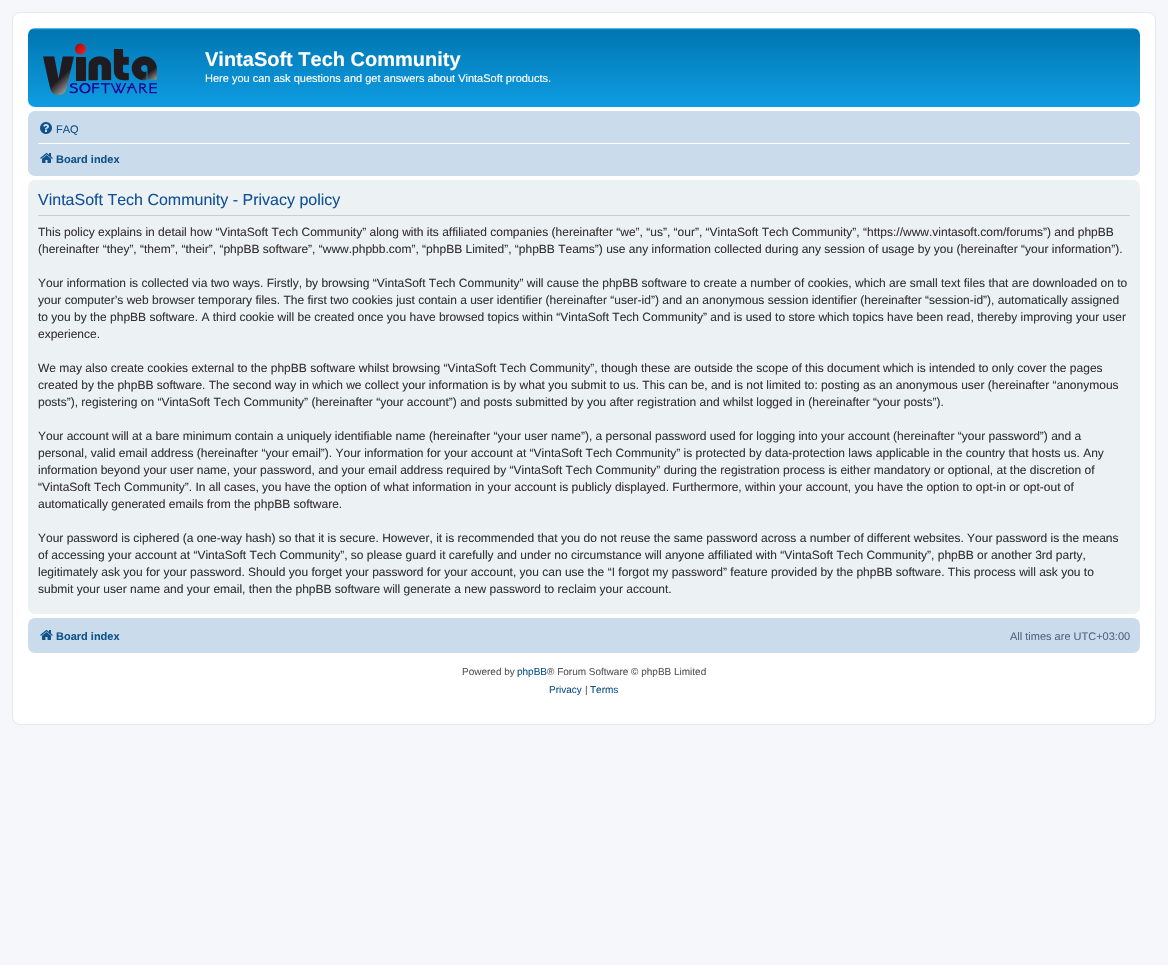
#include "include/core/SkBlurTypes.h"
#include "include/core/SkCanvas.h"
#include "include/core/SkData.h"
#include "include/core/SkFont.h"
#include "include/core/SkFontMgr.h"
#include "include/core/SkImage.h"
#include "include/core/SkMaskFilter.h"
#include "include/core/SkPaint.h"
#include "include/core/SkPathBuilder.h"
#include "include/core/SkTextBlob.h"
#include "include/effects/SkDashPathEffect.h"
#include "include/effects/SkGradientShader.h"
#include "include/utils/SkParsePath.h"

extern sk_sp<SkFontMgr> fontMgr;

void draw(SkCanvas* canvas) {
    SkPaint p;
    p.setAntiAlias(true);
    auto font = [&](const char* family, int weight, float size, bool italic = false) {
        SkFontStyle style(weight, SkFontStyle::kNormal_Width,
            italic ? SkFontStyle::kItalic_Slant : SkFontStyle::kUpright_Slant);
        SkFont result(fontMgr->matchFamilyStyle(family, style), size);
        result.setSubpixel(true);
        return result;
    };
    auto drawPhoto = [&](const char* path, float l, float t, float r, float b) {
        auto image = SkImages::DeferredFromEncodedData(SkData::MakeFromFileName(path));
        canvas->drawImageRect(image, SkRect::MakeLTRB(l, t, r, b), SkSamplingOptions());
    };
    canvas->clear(0xFFF5F7FA);
    p.setColor(0xFFFFFFFF);
    canvas->drawRoundRect(SkRect::MakeLTRB(12.5f, 12.5f, 1155.5f, 724.5f), 7.5f, 7.5f, p);
    p.setStyle(SkPaint::kStroke_Style);
    p.setStrokeWidth(1);
    p.setColor(0xFFE6E9ED);
    canvas->drawRoundRect(SkRect::MakeLTRB(12.5f, 12.5f, 1155.5f, 724.5f), 7.5f, 7.5f, p);
    p.setStyle(SkPaint::kFill_Style);
    {
        const SkColor colors[] = {0xFF6ACEFF, 0xFF0076B1, 0xFF12A3EB};
        const float stops[] = {0, 0.02f, 1};
        const SkPoint ends[] = {{584, 28}, {584, 120}};
        p.setShader(SkGradientShader::MakeLinear(ends, colors, stops, 3, SkTileMode::kClamp));
        p.setAlpha(255);
    }
    canvas->drawRoundRect(SkRect::MakeLTRB(28, 28, 1140, 107), 7, 7, p);
    drawPhoto("media/1.png", 43, 43, 157, 95);
    auto font1 = font("Liberation Sans", 700, 20);
    p.setShader(nullptr);
    p.setColor(0xFFFFFFFF);
    canvas->drawString("VintaSoft Tech Community", 205, 66, font1, p);
    auto font2 = font("Liberation Sans", 400, 11);
    canvas->drawString("Here you can ask questions and get answers about VintaSoft products.", 205, 82, font2, p);
    p.setColor(0xFFCADCEB);
    canvas->drawRoundRect(SkRect::MakeLTRB(28, 111, 1140, 176), 7, 7, p);
    drawPhoto("media/2.png", 40, 122, 52, 134);
    p.setColor(0xFF105289);
    canvas->drawString("FAQ", 56, 133, font2, p);
    p.setColor(0xFFFFFFFF);
    canvas->drawRect(SkRect::MakeLTRB(38, 143, 1130, 144), p);
    drawPhoto("media/3.png", 40, 153, 53, 163);
    auto font3 = font("Liberation Sans", 700, 11);
    p.setColor(0xFF105289);
    canvas->drawString("Board index", 56, 163, font3, p);
    p.setColor(0xFFECF1F3);
    canvas->drawRoundRect(SkRect::MakeLTRB(28, 180, 1140, 614), 7, 7, p);
    p.setColor(0xFFCCCCCC);
    canvas->drawRect(SkRect::MakeLTRB(38, 215, 1130, 216), p);
    auto font4 = font("Liberation Sans", 400, 16);
    p.setColor(0xFF115098);
    canvas->drawString("VintaSoft Tech Community - Privacy policy", 38, 205, font4, p);
    auto font5 = font("Liberation Sans", 400, 12);
    p.setColor(0xFF333333);
    {
        const struct { const char* s; float x, y; } items[] = {
            {"This policy explains in detail how “VintaSoft Tech Community” along with its affiliated companies (hereinafter “we”, “us”, “our”, “VintaSoft Tech Community”, “https://www.vintasoft.com/forums”) and phpBB", 38, 236},
            {"(hereinafter “they”, “them”, “their”, “phpBB software”, “www.phpbb.com”, “phpBB Limited”, “phpBB Teams”) use any information collected during any session of usage by you (hereinafter “your information”).", 38, 253},
            {"Your information is collected via two ways. Firstly, by browsing “VintaSoft Tech Community” will cause the phpBB software to create a number of cookies, which are small text files that are downloaded on to", 38, 287},
            {"your computer’s web browser temporary files. The first two cookies just contain a user identifier (hereinafter “user-id”) and an anonymous session identifier (hereinafter “session-id”), automatically assigned", 38, 304},
            {"to you by the phpBB software. A third cookie will be created once you have browsed topics within “VintaSoft Tech Community” and is used to store which topics have been read, thereby improving your user", 38, 321},
            {"experience.", 38, 338},
            {"We may also create cookies external to the phpBB software whilst browsing “VintaSoft Tech Community”, though these are outside the scope of this document which is intended to only cover the pages", 38, 372},
            {"created by the phpBB software. The second way in which we collect your information is by what you submit to us. This can be, and is not limited to: posting as an anonymous user (hereinafter “anonymous", 38, 389},
            {"posts”), registering on “VintaSoft Tech Community” (hereinafter “your account”) and posts submitted by you after registration and whilst logged in (hereinafter “your posts”).", 38, 406},
            {"Your account will at a bare minimum contain a uniquely identifiable name (hereinafter “your user name”), a personal password used for logging into your account (hereinafter “your password”) and a", 38, 440},
            {"personal, valid email address (hereinafter “your email”). Your information for your account at “VintaSoft Tech Community” is protected by data-protection laws applicable in the country that hosts us. Any", 38, 457},
            {"information beyond your user name, your password, and your email address required by “VintaSoft Tech Community” during the registration process is either mandatory or optional, at the discretion of", 38, 474},
            {"“VintaSoft Tech Community”. In all cases, you have the option of what information in your account is publicly displayed. Furthermore, within your account, you have the option to opt-in or opt-out of", 38, 491},
            {"automatically generated emails from the phpBB software.", 38, 508},
            {"Your password is ciphered (a one-way hash) so that it is secure. However, it is recommended that you do not reuse the same password across a number of different websites. Your password is the means", 38, 542},
            {"of accessing your account at “VintaSoft Tech Community”, so please guard it carefully and under no circumstance will anyone affiliated with “VintaSoft Tech Community”, phpBB or another 3rd party,", 38, 559},
            {"legitimately ask you for your password. Should you forget your password for your account, you can use the “I forgot my password” feature provided by the phpBB software. This process will ask you to", 38, 576},
            {"submit your user name and your email, then the phpBB software will generate a new password to reclaim your account.", 38, 593},
        };
        for (auto [s, x, y] : items) {
            canvas->drawString(s, x, y, font5, p);
        }
    }
    p.setColor(0xFFCADCEB);
    canvas->drawRoundRect(SkRect::MakeLTRB(28, 618, 1140, 653), 7, 7, p);
    drawPhoto("media/3.png", 40, 630, 53, 640);
    p.setColor(0xFF105289);
    canvas->drawString("Board index", 56, 640, font3, p);
    p.setColor(0xFF536482);
    canvas->drawString("All times are UTC+03:00", 1010, 640, font2, p);
    auto font6 = font("Liberation Sans", 400, 10);
    p.setColor(0xFF555555);
    canvas->drawString("Powered by", 462, 675, font6, p);
    p.setColor(0xFF105289);
    canvas->drawString("phpBB", 517, 675, font6, p);
    p.setColor(0xFF555555);
    canvas->drawString("® Forum Software © phpBB Limited", 547, 675, font6, p);
    p.setColor(0xFF105289);
    canvas->drawString("Privacy", 549, 693, font6, p);
    p.setColor(0xFF555555);
    canvas->drawString("|", 585, 693, font6, p);
    p.setColor(0xFF105289);
    canvas->drawString("Terms", 590, 693, font6, p);
}
